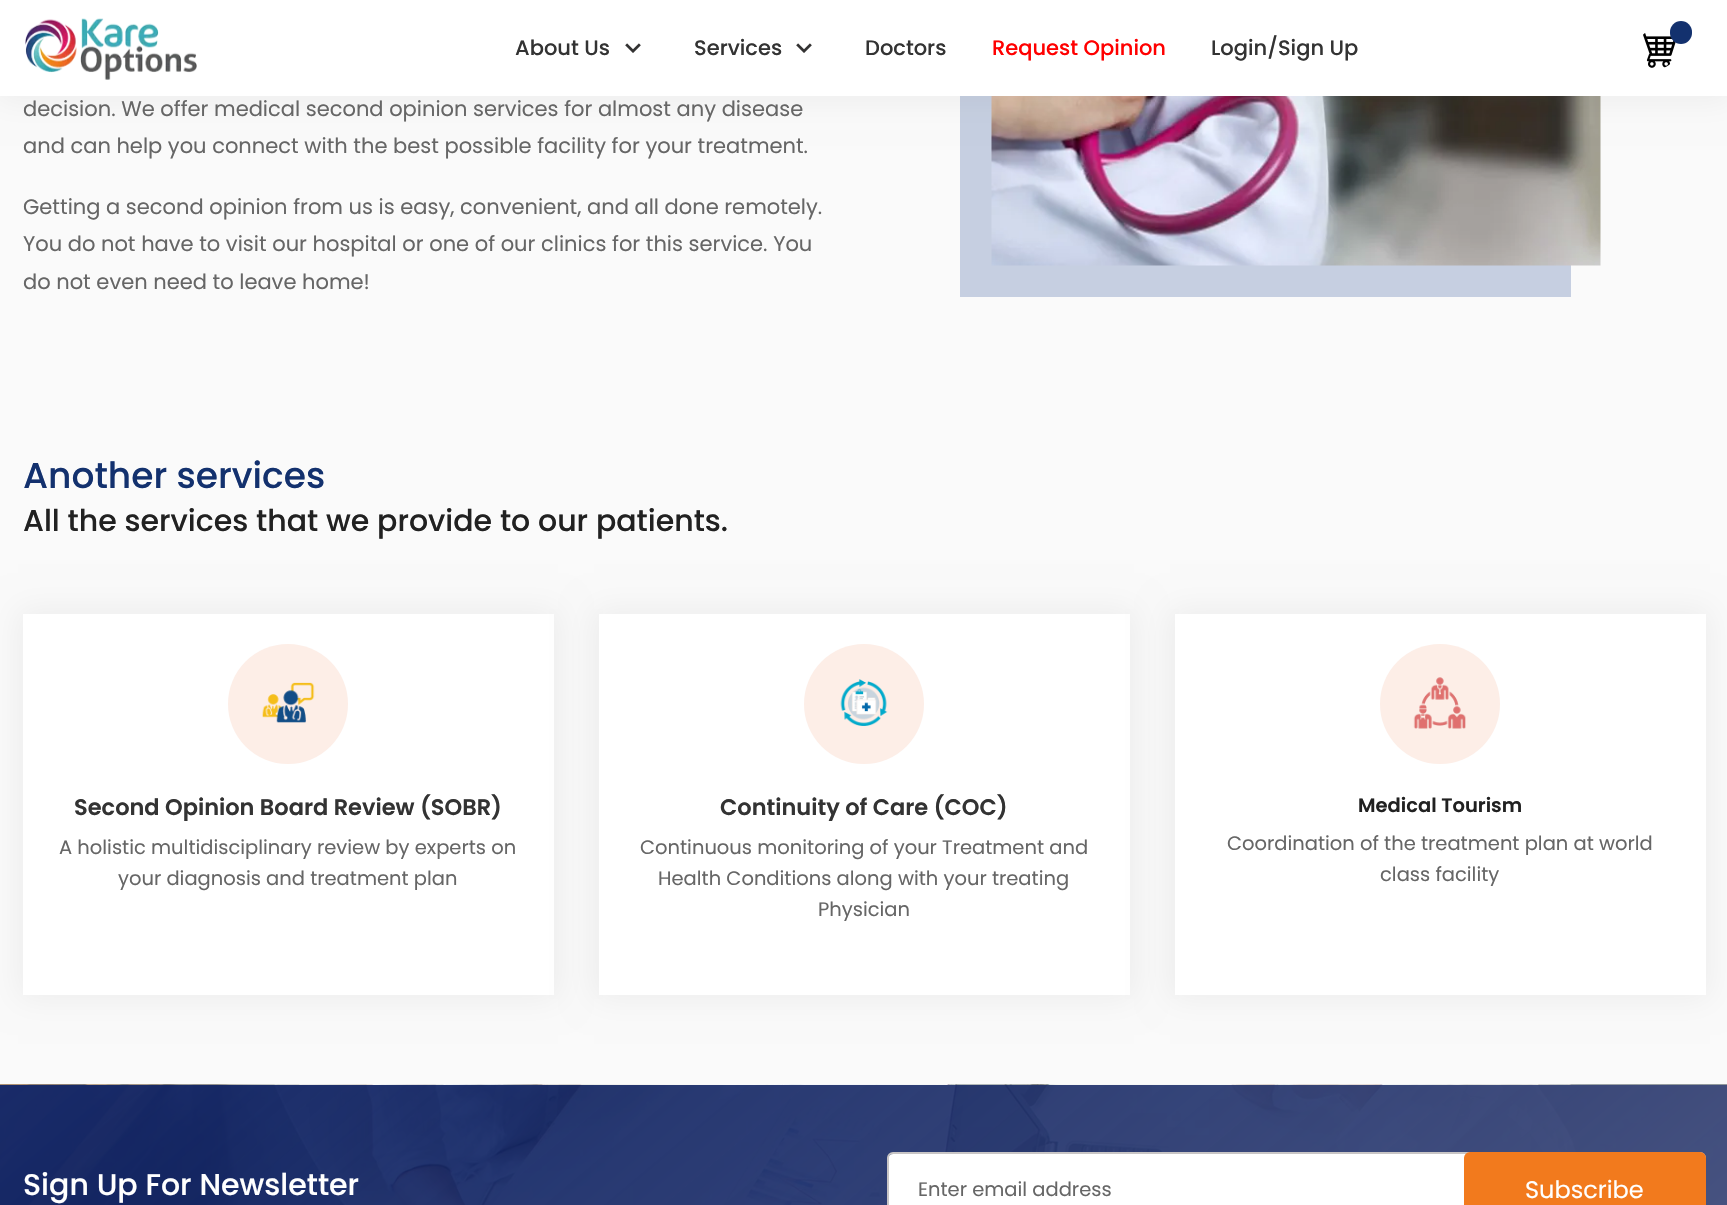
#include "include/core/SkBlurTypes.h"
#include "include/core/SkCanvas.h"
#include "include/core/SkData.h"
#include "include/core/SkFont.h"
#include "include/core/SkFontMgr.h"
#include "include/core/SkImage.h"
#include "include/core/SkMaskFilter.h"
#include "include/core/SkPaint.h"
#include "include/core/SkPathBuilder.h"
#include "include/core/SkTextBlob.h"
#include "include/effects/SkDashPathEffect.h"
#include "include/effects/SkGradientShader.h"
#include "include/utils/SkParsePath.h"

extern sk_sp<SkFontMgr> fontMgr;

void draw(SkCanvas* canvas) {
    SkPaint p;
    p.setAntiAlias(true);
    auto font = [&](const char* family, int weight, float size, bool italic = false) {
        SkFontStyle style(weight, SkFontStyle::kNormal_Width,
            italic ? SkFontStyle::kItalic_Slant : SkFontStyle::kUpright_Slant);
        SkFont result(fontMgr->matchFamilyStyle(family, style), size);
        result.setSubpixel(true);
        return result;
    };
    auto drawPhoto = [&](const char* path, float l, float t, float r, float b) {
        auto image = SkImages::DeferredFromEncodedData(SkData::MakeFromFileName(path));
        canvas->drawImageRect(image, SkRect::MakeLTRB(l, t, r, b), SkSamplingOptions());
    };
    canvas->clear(0xFFFAFAFA);
    p.setColor(0xFFC6CFE1);
    canvas->drawRect(SkRect::MakeLTRB(960, 96, 1571, 297), p);
    drawPhoto("media/4.png", 991, 96, 1601, 266);
    p.setColor(0x0D000000);
    p.setMaskFilter(SkMaskFilter::MakeBlur(kNormal_SkBlurStyle, 15));
    canvas->drawRect(SkRect::MakeLTRB(-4, -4, 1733, 101), p);
    p.setMaskFilter(nullptr);
    p.setColor(0xFFFFFFFF);
    canvas->drawRect(SkRect::MakeLTRB(0, 0, 1727, 96), p);
    drawPhoto("media/1.png", 25, 18, 197, 80);
    auto font1 = font("Poppins", 500, 21);
    p.setColor(0xFF333333);
    canvas->drawString("About Us", 515, 55, font1, p);
    drawPhoto("media/2.png", 625, 43, 641, 53);
    canvas->drawString("Services", 694, 55, font1, p);
    drawPhoto("media/2.png", 796, 43, 812, 53);
    canvas->drawString("Doctors", 865, 55, font1, p);
    p.setColor(0xFFFF0000);
    canvas->drawString("Request Opinion", 992, 55, font1, p);
    p.setColor(0xFF333333);
    canvas->drawString("Login/Sign Up", 1211, 55, font1, p);
    drawPhoto("media/3.png", 1643, 33, 1676, 68);
    p.setColor(0xFF13316E);
    canvas->drawRoundRect(SkRect::MakeLTRB(1670, 21, 1692, 44), 11, 11, p);
    auto font2 = font("Poppins", 400, 21);
    p.setColor(0xFF666666);
    {
        const struct { const char* s; float x, y; } items[] = {
            {"decision. We offer medical second opinion services for almost any disease", 23, 116},
            {"and can help you connect with the best possible facility for your treatment.", 23, 153},
            {"Getting a second opinion from us is easy, convenient, and all done remotely.", 23, 214},
            {"You do not have to visit our hospital or one of our clinics for this service. You", 23, 251},
            {"do not even need to leave home!", 23, 289},
        };
        for (auto [s, x, y] : items) {
            canvas->drawString(s, x, y, font2, p);
        }
    }
    auto font3 = font("Poppins", 500, 36);
    p.setColor(0xFF13316E);
    canvas->drawString("Another services", 23, 488, font3, p);
    auto font4 = font("Poppins", 500, 30);
    p.setColor(0xFF212121);
    canvas->drawString("All the services that we provide to our patients.", 23, 531, font4, p);
    p.setColor(0x0D000000);
    p.setMaskFilter(SkMaskFilter::MakeBlur(kNormal_SkBlurStyle, 15));
    canvas->drawRect(SkRect::MakeLTRB(18, 609, 558, 999), p);
    p.setMaskFilter(nullptr);
    p.setColor(0xFFFFFFFF);
    canvas->drawRect(SkRect::MakeLTRB(23, 614, 554, 995), p);
    p.setColor(0xFFFDEEE7);
    canvas->drawCircle(288, 704, 60, p);
    drawPhoto("media/5.png", 262, 682, 315, 723);
    auto font5 = font("Poppins", 600, 22.5f);
    p.setColor(0xFF333333);
    canvas->drawString("Second Opinion Board Review (SOBR)", 74, 815, font5, p);
    auto font6 = font("Poppins", 400, 19.5f);
    p.setColor(0xFF666666);
    canvas->drawString("A holistic multidisciplinary review by experts on", 59, 854, font6, p);
    canvas->drawString("your diagnosis and treatment plan", 118, 885, font6, p);
    p.setColor(0x0D000000);
    p.setMaskFilter(SkMaskFilter::MakeBlur(kNormal_SkBlurStyle, 15));
    canvas->drawRect(SkRect::MakeLTRB(594, 609, 1134, 999), p);
    p.setMaskFilter(nullptr);
    p.setColor(0xFFFFFFFF);
    canvas->drawRect(SkRect::MakeLTRB(599, 614, 1130, 995), p);
    p.setColor(0xFFFDEEE7);
    canvas->drawCircle(864, 704, 60, p);
    drawPhoto("media/6.png", 840, 679, 888, 726);
    p.setColor(0xFF333333);
    canvas->drawString("Continuity of Care (COC)", 720, 815, font5, p);
    p.setColor(0xFF666666);
    {
        const struct { const char* s; float x, y; } items[] = {
            {"Continuous monitoring of your Treatment and", 640, 854},
            {"Health Conditions along with your treating", 658, 885},
            {"Physician", 818, 916},
        };
        for (auto [s, x, y] : items) {
            canvas->drawString(s, x, y, font6, p);
        }
    }
    p.setColor(0x0D000000);
    p.setMaskFilter(SkMaskFilter::MakeBlur(kNormal_SkBlurStyle, 15));
    canvas->drawRect(SkRect::MakeLTRB(1170, 609, 1710, 999), p);
    p.setMaskFilter(nullptr);
    p.setColor(0xFFFFFFFF);
    canvas->drawRect(SkRect::MakeLTRB(1175, 614, 1706, 995), p);
    p.setColor(0xFFFDEEE7);
    canvas->drawCircle(1440, 704, 60, p);
    drawPhoto("media/7.png", 1413, 677, 1466, 729);
    auto font7 = font("Poppins", 600, 19.5f);
    p.setColor(0xFF212121);
    canvas->drawString("Medical Tourism", 1358, 812, font7, p);
    p.setColor(0xFF666666);
    canvas->drawString("Coordination of the treatment plan at world", 1227, 850, font6, p);
    canvas->drawString("class facility", 1380, 881, font6, p);
    drawPhoto("media/8.png", 0, 1084, 1727, 1085);
    drawPhoto("media/9.png", 0, 1084, 1727, 1205);
    p.setColor(0xFFFFFFFF);
    canvas->drawString("Sign Up For Newsletter", 23, 1195, font4, p);
    canvas->drawRoundRect(SkRect::MakeLTRB(888, 1154, 1704, 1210), 5, 5, p);
    p.setStyle(SkPaint::kStroke_Style);
    p.setStrokeWidth(2);
    p.setColor(0xFFC8C5C5);
    canvas->drawRoundRect(SkRect::MakeLTRB(888, 1153, 1705, 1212), 5, 5, p);
    p.setStyle(SkPaint::kFill_Style);
    p.setColor(0xFF666666);
    canvas->drawString("Enter email address", 918, 1196, font6, p);
    p.setColor(0xFFF27A1D);
    canvas->drawRoundRect(SkRect::MakeLTRB(1465, 1153, 1705, 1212), 5, 5, p);
    p.setStyle(SkPaint::kStroke_Style);
    canvas->drawRoundRect(SkRect::MakeLTRB(1465, 1153, 1705, 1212), 5, 5, p);
    auto font8 = font("Poppins", 400, 24);
    p.setStyle(SkPaint::kFill_Style);
    p.setColor(0xFFFFFFFF);
    canvas->drawString("Subscribe", 1525, 1198, font8, p);
}
